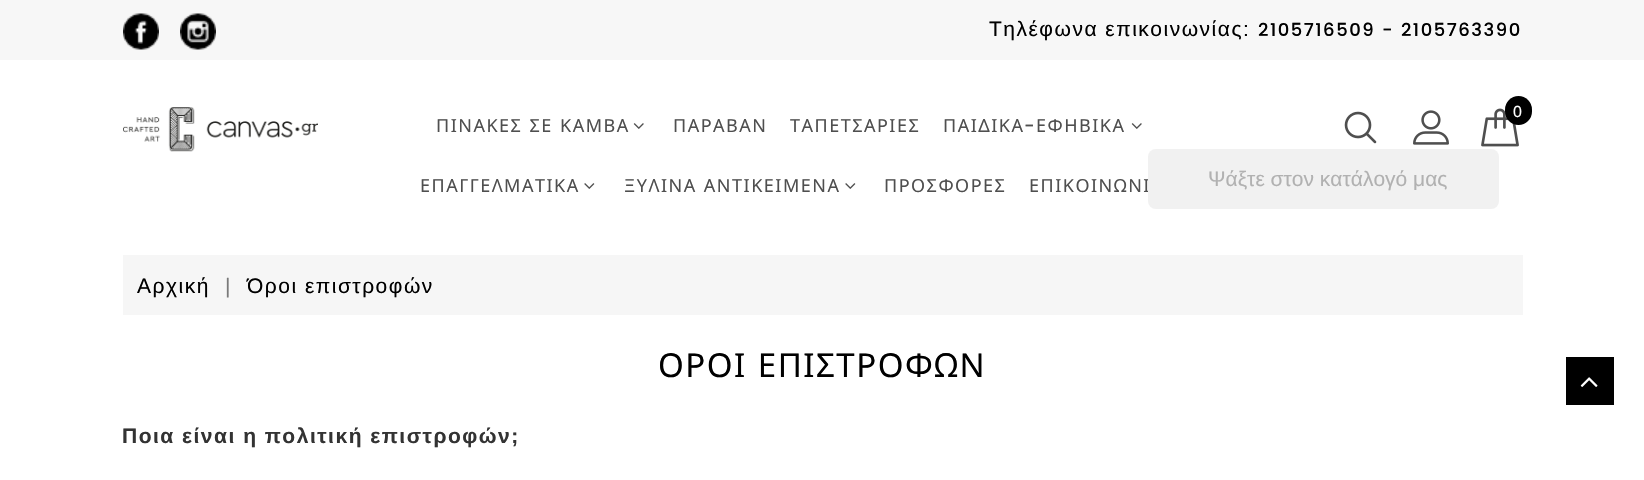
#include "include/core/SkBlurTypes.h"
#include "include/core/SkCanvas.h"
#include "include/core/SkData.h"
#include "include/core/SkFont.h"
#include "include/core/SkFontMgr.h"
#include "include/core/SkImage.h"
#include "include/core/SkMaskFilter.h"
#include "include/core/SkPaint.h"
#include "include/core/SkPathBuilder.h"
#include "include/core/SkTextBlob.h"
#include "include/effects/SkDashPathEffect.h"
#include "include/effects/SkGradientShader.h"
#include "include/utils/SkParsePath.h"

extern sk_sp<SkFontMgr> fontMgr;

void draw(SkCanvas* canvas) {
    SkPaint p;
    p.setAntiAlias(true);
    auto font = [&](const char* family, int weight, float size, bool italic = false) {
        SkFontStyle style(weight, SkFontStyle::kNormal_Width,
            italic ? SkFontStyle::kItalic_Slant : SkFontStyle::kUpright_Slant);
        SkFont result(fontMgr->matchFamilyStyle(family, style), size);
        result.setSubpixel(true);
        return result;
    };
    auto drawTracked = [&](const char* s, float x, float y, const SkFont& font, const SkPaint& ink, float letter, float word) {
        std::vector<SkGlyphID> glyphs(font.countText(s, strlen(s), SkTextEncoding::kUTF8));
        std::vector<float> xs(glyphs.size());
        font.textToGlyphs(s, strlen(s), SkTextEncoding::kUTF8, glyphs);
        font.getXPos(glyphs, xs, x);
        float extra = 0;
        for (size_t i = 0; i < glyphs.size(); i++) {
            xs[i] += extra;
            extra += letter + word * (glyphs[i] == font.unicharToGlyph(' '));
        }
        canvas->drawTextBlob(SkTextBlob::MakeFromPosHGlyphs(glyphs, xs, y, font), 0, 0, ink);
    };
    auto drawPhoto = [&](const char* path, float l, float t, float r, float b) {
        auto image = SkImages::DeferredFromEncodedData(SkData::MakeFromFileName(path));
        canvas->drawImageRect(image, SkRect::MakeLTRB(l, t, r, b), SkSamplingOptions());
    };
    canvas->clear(0xFFFFFFFF);
    p.setColor(0xFFF7F7F7);
    canvas->drawRect(SkRect::MakeLTRB(0, 0, 1644, 60), p);
    drawPhoto("media/1.png", 123, 13, 159, 50);
    drawPhoto("media/2.png", 180, 13, 216, 50);
    auto font1 = font("Liberation Sans", 400, 21);
    p.setColor(0xFF000000);
    drawTracked("Τηλέφωνα επικοινωνίας:", 989, 36, font1, p, 1.5f, 0);
    auto font2 = font("Poppins", 500, 18);
    drawTracked("2105716509 - 2105763390", 1258, 36, font2, p, 1.5f, 0);
    drawPhoto("media/3.png", 123, 107, 318, 152);
    auto font3 = font("Noto Sans", 400, 18);
    p.setColor(0xFF4F4F4F);
    drawTracked("ΠΙΝΑΚΕΣ ΣΕ ΚΑΜΒΑ", 436, 132, font3, p, 1.5f, 1);
    drawPhoto("media/4.png", 633, 123, 644, 129);
    {
        const struct { const char* s; float x, y; } items[] = {
            {"ΠΑΡΑΒΑΝ", 673, 132},
            {"ΤΑΠΕΤΣΑΡΙΕΣ", 790, 132},
            {"ΠΑΙΔΙΚΑ", 943, 132},
        };
        for (auto [s, x, y] : items) {
            drawTracked(s, x, y, font3, p, 1.5f, 0);
        }
    }
    drawTracked("-", 1024, 132, font2, p, 1.5f, 0);
    drawTracked("ΕΦΗΒΙΚΑ", 1036, 132, font3, p, 1.5f, 0);
    drawPhoto("media/4.png", 1131, 123, 1142, 129);
    drawTracked("ΕΠΑΓΓΕΛΜΑΤΙΚΑ", 420, 192, font3, p, 1.5f, 0);
    drawPhoto("media/5.png", 584, 183, 595, 189);
    drawTracked("ΞΥΛΙΝΑ ΑΝΤΙΚΕΙΜΕΝΑ", 624, 192, font3, p, 1.5f, 1);
    drawPhoto("media/5.png", 845, 183, 856, 189);
    drawTracked("ΠΡΟΣΦΟΡΕΣ", 884, 192, font3, p, 1.5f, 0);
    drawTracked("ΕΠΙΚΟΙΝΩΝΙ", 1029, 192, font3, p, 1.5f, 0);
    drawPhoto("media/6.png", 1344, 111, 1377, 144);
    drawPhoto("media/7.png", 1413, 110, 1449, 145);
    drawPhoto("media/8.png", 1481, 108, 1519, 147);
    p.setColor(0xFF000000);
    canvas->drawRoundRect(SkRect::MakeLTRB(1505, 96, 1532, 125), 13.5f, 13.5f, p);
    auto font4 = font("Liberation Sans", 400, 16);
    p.setColor(0xFFFFFFFF);
    drawTracked("0", 1513, 117, font4, p, 1.5f, 0);
    p.setColor(0xFFF1F1F1);
    canvas->drawRoundRect(SkRect::MakeLTRB(1148, 149, 1499, 209), 8, 8, p);
    p.setColor(0xFFB1B1B1);
    canvas->drawString("Ψάξτε στον κατάλογό μας", 1208, 186, font1, p);
    p.setColor(0xFFF6F6F6);
    canvas->drawRect(SkRect::MakeLTRB(123, 255, 1523, 315), p);
    p.setColor(0xFF000000);
    drawTracked("Αρχική", 137, 293, font1, p, 1.5f, 0);
    p.setColor(0xFF7A7A7A);
    drawTracked("|", 225, 293, font1, p, 1.5f, 0);
    p.setColor(0xFF000000);
    drawTracked("Όροι επιστροφών", 247, 293, font1, p, 1.5f, 0);
    auto font5 = font("Noto Sans", 400, 33);
    drawTracked("ΟΡΟΙ ΕΠΙΣΤΡΟΦΩΝ", 658, 377, font5, p, 1.5f, 1);
    auto font6 = font("Liberation Sans", 700, 21);
    p.setColor(0xFF333333);
    drawTracked("Ποια είναι η πολιτική επιστροφών;", 122, 443, font6, p, 1.5f, 0);
    p.setColor(0xFF000000);
    canvas->drawRect(SkRect::MakeLTRB(1566, 357, 1614, 405), p);
    drawPhoto("media/9.png", 1580, 377, 1598, 387);
}
